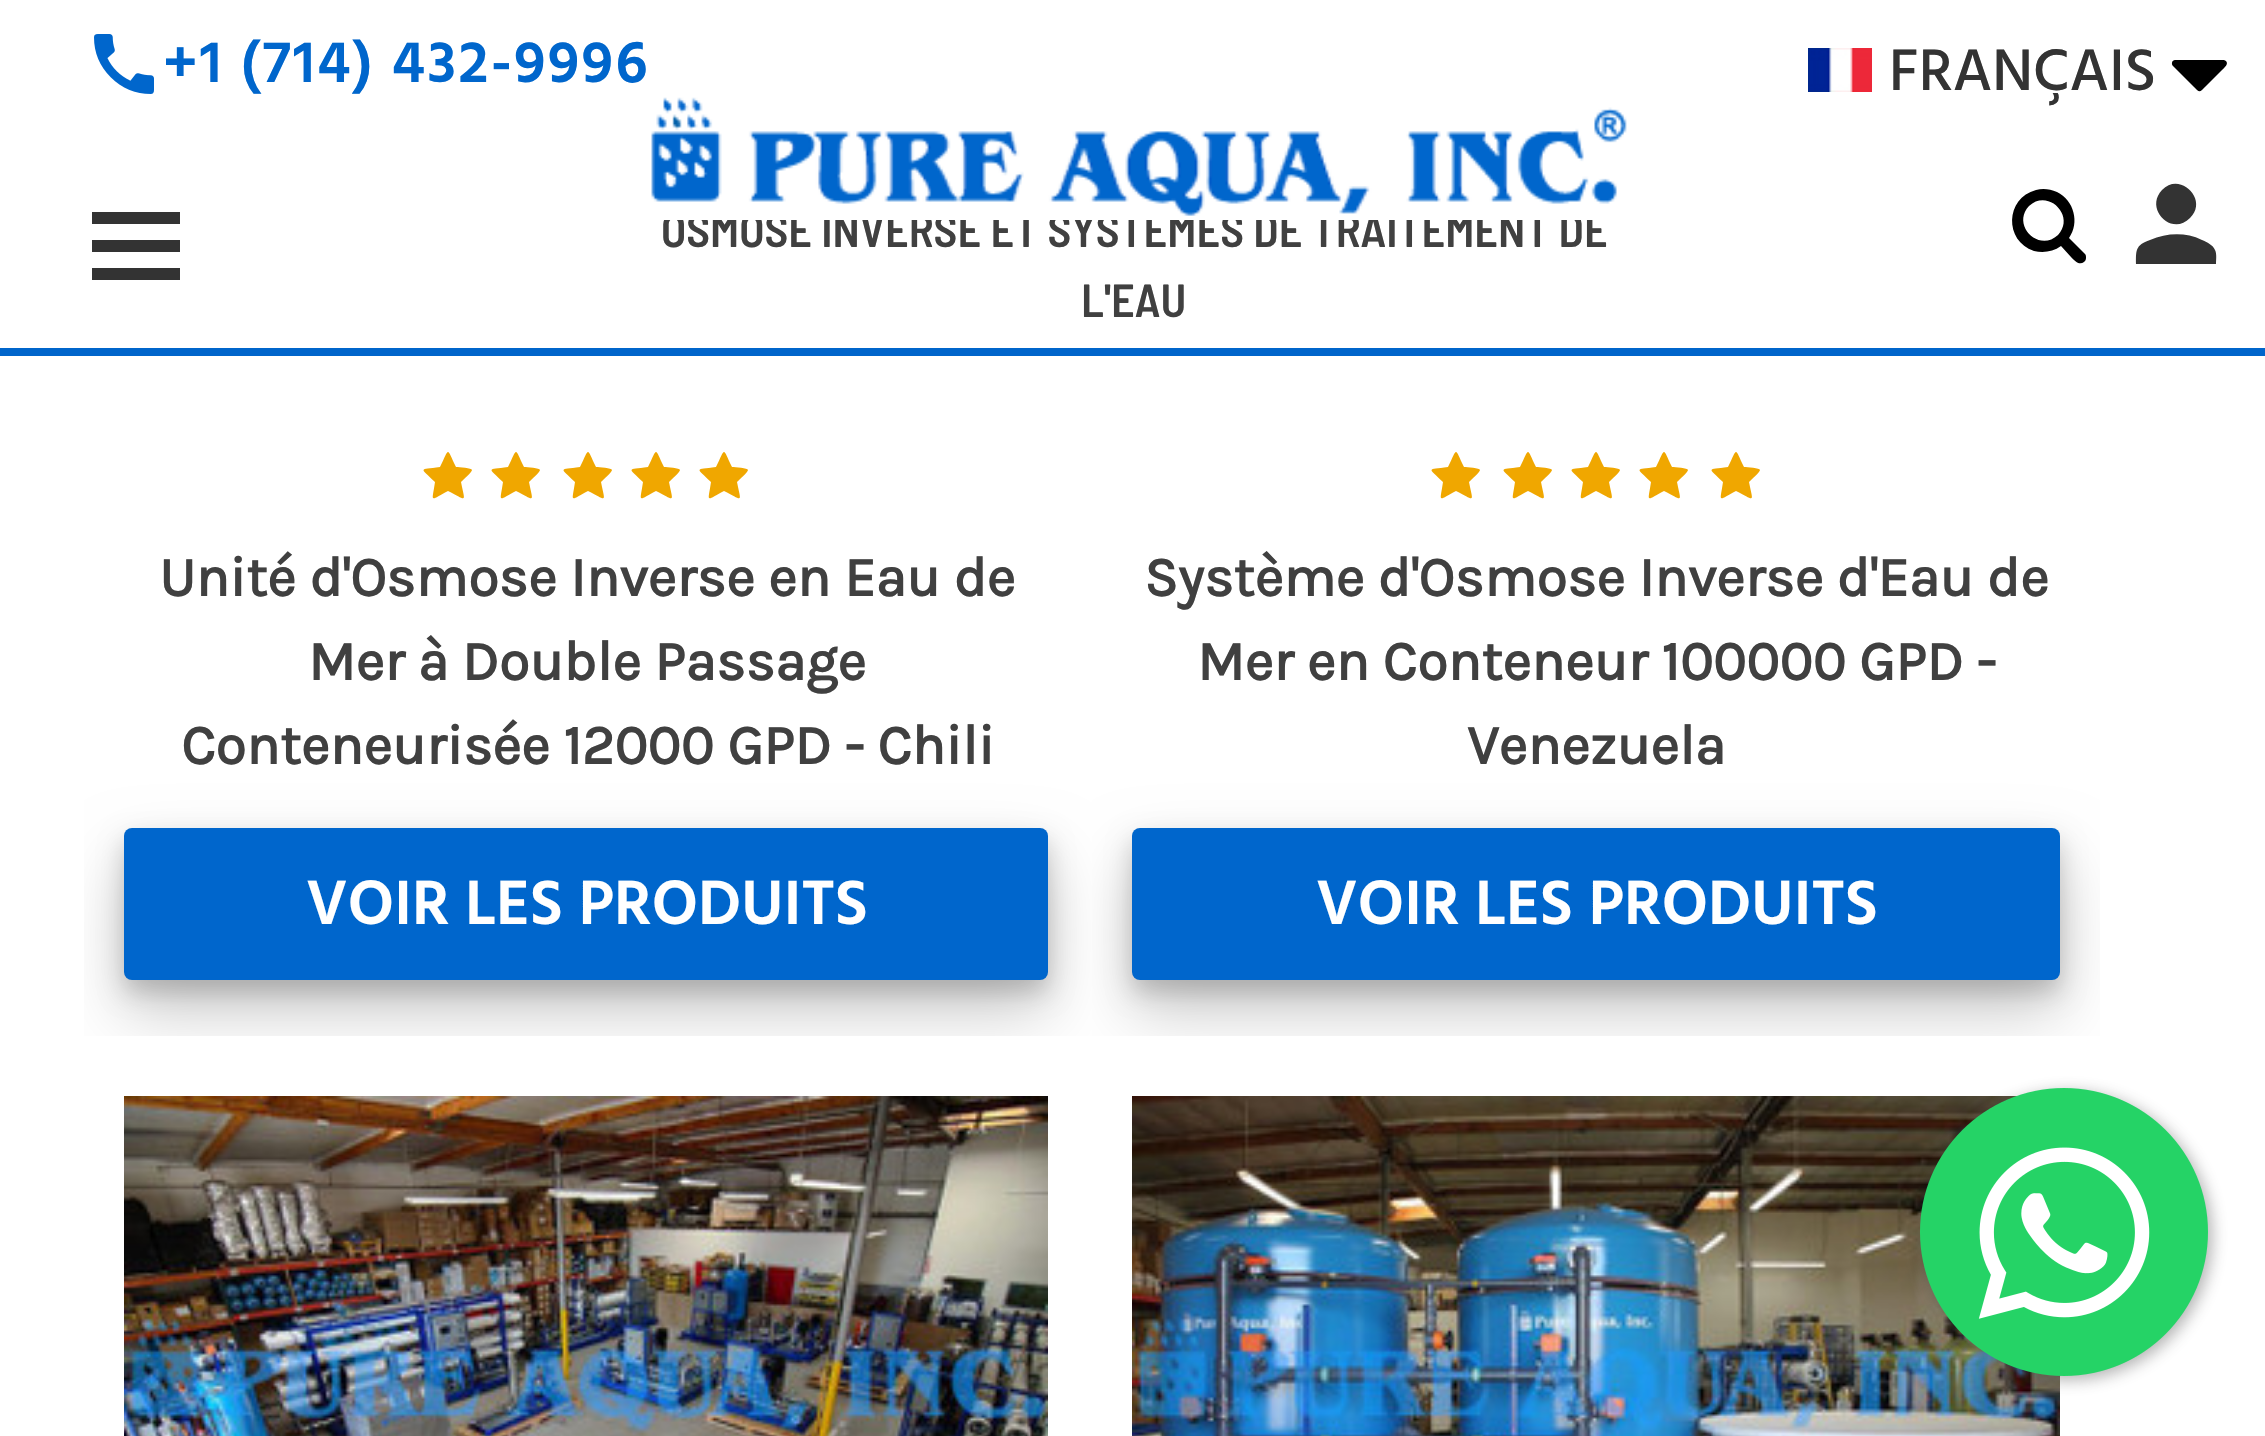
#include "include/core/SkBlurTypes.h"
#include "include/core/SkCanvas.h"
#include "include/core/SkData.h"
#include "include/core/SkFont.h"
#include "include/core/SkFontMgr.h"
#include "include/core/SkImage.h"
#include "include/core/SkMaskFilter.h"
#include "include/core/SkPaint.h"
#include "include/core/SkPathBuilder.h"
#include "include/core/SkTextBlob.h"
#include "include/effects/SkDashPathEffect.h"
#include "include/effects/SkGradientShader.h"
#include "include/utils/SkParsePath.h"

extern sk_sp<SkFontMgr> fontMgr;

void draw(SkCanvas* canvas) {
    SkPaint p;
    p.setAntiAlias(true);
    auto font = [&](const char* family, int weight, float size, bool italic = false) {
        SkFontStyle style(weight, SkFontStyle::kNormal_Width,
            italic ? SkFontStyle::kItalic_Slant : SkFontStyle::kUpright_Slant);
        SkFont result(fontMgr->matchFamilyStyle(family, style), size);
        result.setSubpixel(true);
        return result;
    };
    auto drawTracked = [&](const char* s, float x, float y, const SkFont& font, const SkPaint& ink, float letter, float word) {
        std::vector<SkGlyphID> glyphs(font.countText(s, strlen(s), SkTextEncoding::kUTF8));
        std::vector<float> xs(glyphs.size());
        font.textToGlyphs(s, strlen(s), SkTextEncoding::kUTF8, glyphs);
        font.getXPos(glyphs, xs, x);
        float extra = 0;
        for (size_t i = 0; i < glyphs.size(); i++) {
            xs[i] += extra;
            extra += letter + word * (glyphs[i] == font.unicharToGlyph(' '));
        }
        canvas->drawTextBlob(SkTextBlob::MakeFromPosHGlyphs(glyphs, xs, y, font), 0, 0, ink);
    };
    auto drawPhoto = [&](const char* path, float l, float t, float r, float b) {
        auto image = SkImages::DeferredFromEncodedData(SkData::MakeFromFileName(path));
        canvas->drawImageRect(image, SkRect::MakeLTRB(l, t, r, b), SkSamplingOptions());
    };
    canvas->clear(0xFFFFFFFF);
    p.setColor(0xFF0065CB);
    canvas->drawRect(SkRect::MakeLTRB(0, 348, 2265, 356), p);
    drawPhoto("media/1.png", 94, 34, 154, 94);
    auto font1 = font("Hind Siliguri", 600, 60);
    p.setColor(0xFF0066CC);
    drawTracked("+1 (714) 432-9996", 163, 82, font1, p, 2.4f, 0);
    drawPhoto("media/2.png", 1808, 48, 1872, 92);
    auto font2 = font("Hind Siliguri", 500, 60);
    p.setColor(0xFF333333);
    canvas->drawString("FRANÇAIS", 1889, 90, font2, p);
    p.setColor(0xFF000000);
    canvas->drawPath(SkPathBuilder().moveTo(2226, 61).cubicTo(2229, 64, 2224, 68, 2222, 70).lineTo(2206, 86).cubicTo(2199, 93, 2200, 93, 2193, 86).lineTo(2173, 66).cubicTo(2171, 64, 2172, 60, 2175, 60).lineTo(2224, 60).close().detach(), p);
    {
        const struct { float l, t, r, b; SkColor color; } items[] = {
            {92, 240, 180, 252, 0xFF333333},
            {92, 212, 180, 224, 0xFF333333},
            {92, 268, 180, 280, 0xFF333333},
        };
        for (auto [l, t, r, b, color] : items) {
            p.setColor(color);
            canvas->drawRect(SkRect::MakeLTRB(l, t, r, b), p);
        }
    }
    p.setColor(0xFF000000);
    canvas->drawPath(SkPathBuilder().moveTo(2058, 235).cubicTo(2076, 216, 2048, 188, 2029, 206).cubicTo(2011, 225, 2039, 253, 2058, 235).close().moveTo(2086, 258).cubicTo(2086, 260, 2085, 261, 2084, 262).cubicTo(2079, 266, 2074, 260, 2071, 257).lineTo(2061, 246).cubicTo(2053, 252, 2043, 253, 2034, 251).cubicTo(2004, 241, 2005, 198, 2036, 190).cubicTo(2043, 188, 2050, 189, 2057, 192).cubicTo(2074, 200, 2080, 223, 2069, 238).lineTo(2085, 254).cubicTo(2086, 255, 2086, 256, 2086, 258).close().detach(), p);
    p.setColor(0xFF333333);
    canvas->drawPath(SkPathBuilder().moveTo(2150, 240).cubicTo(2167, 233, 2185, 232, 2202, 240).cubicTo(2207, 242, 2213, 245, 2215, 250).cubicTo(2217, 254, 2216, 260, 2216, 264).lineTo(2136, 264).cubicTo(2136, 251, 2135, 245, 2150, 240).close().moveTo(2190, 218).cubicTo(2172, 237, 2144, 209, 2162, 190).cubicTo(2180, 171, 2209, 200, 2190, 218).close().detach(), p);
    auto font3 = font("Barlow Semi Condensed", 600, 46.4f);
    p.setColor(0xFF404040);
    canvas->drawString("OSMOSE INVERSE ET SYSTÈMES DE TRAITEMENT DE", 661, 247, font3, p);
    drawPhoto("media/3.png", 651, 97, 1627, 220);
    canvas->drawString("L'EAU", 1081, 317, font3, p);
    p.setColor(0xFFF0A700);
    canvas->drawPath(SkPathBuilder().moveTo(472, 470).cubicTo(472, 472, 463, 480, 461, 482).cubicTo(465, 503, 468, 501, 448, 491).cubicTo(429, 501, 432, 503, 435, 482).cubicTo(420, 467, 418, 470, 440, 467).cubicTo(450, 447, 446, 447, 456, 467).cubicTo(459, 467, 472, 468, 472, 470).close().detach(), p);
    canvas->drawPath(SkPathBuilder().moveTo(540, 470).cubicTo(540, 472, 531, 480, 529, 482).cubicTo(533, 503, 536, 501, 516, 491).cubicTo(497, 501, 500, 503, 503, 482).cubicTo(488, 467, 486, 470, 508, 467).cubicTo(518, 447, 514, 447, 524, 467).cubicTo(527, 467, 540, 468, 540, 470).close().detach(), p);
    canvas->drawPath(SkPathBuilder().moveTo(612, 470).cubicTo(612, 472, 603, 480, 601, 482).cubicTo(605, 503, 608, 501, 588, 491).cubicTo(569, 501, 572, 503, 575, 482).cubicTo(560, 467, 558, 470, 580, 467).cubicTo(590, 447, 586, 447, 596, 467).cubicTo(599, 467, 612, 468, 612, 470).close().detach(), p);
    canvas->drawPath(SkPathBuilder().moveTo(680, 470).cubicTo(680, 472, 671, 480, 669, 482).cubicTo(673, 503, 676, 501, 656, 491).cubicTo(637, 501, 640, 503, 643, 482).cubicTo(628, 467, 626, 470, 648, 467).cubicTo(658, 447, 654, 447, 664, 467).cubicTo(667, 467, 680, 468, 680, 470).close().detach(), p);
    canvas->drawPath(SkPathBuilder().moveTo(748, 470).cubicTo(748, 472, 739, 480, 737, 482).cubicTo(741, 503, 744, 501, 724, 491).cubicTo(705, 501, 708, 503, 711, 482).cubicTo(696, 467, 694, 470, 716, 467).cubicTo(726, 447, 722, 447, 732, 467).cubicTo(735, 467, 748, 468, 748, 470).close().detach(), p);
    auto font4 = font("Karla", 700, 56);
    p.setColor(0xFF404040);
    {
        const struct { const char* s; float x, y; } items[] = {
            {"Unité d'Osmose Inverse en Eau de", 159, 596},
            {"Mer à Double Passage", 308, 680},
            {"Conteneurisée 12000 GPD - Chili", 181, 764},
        };
        for (auto [s, x, y] : items) {
            canvas->drawString(s, x, y, font4, p);
        }
    }
    p.setColor(0x30000000);
    p.setMaskFilter(SkMaskFilter::MakeBlur(kNormal_SkBlurStyle, 12));
    canvas->drawRoundRect(SkRect::MakeLTRB(124, 840, 1048, 992), 8, 8, p);
    p.setMaskFilter(nullptr);
    canvas->save();
    canvas->clipRect(SkRect::MakeLTRB(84, 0, 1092, 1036));
    p.setColor(0x33000000);
    p.setMaskFilter(SkMaskFilter::MakeBlur(kNormal_SkBlurStyle, 32));
    canvas->drawRoundRect(SkRect::MakeLTRB(124, 860, 1048, 1012), 8, 8, p);
    p.setMaskFilter(nullptr);
    canvas->restore();
    p.setColor(0xFF0066CC);
    canvas->drawRoundRect(SkRect::MakeLTRB(124, 828, 1048, 980), 8, 8, p);
    auto font5 = font("Hind Siliguri", 600, 64);
    p.setColor(0xFFFFFFFF);
    canvas->drawString("VOIR LES PRODUITS", 306, 924, font5, p);
    p.setColor(0xFFF0A700);
    canvas->drawPath(SkPathBuilder().moveTo(1480, 470).cubicTo(1480, 472, 1471, 480, 1469, 482).cubicTo(1473, 503, 1476, 501, 1456, 491).cubicTo(1437, 501, 1440, 503, 1443, 482).cubicTo(1428, 467, 1426, 470, 1448, 467).cubicTo(1458, 447, 1454, 447, 1464, 467).cubicTo(1467, 467, 1480, 468, 1480, 470).close().detach(), p);
    canvas->drawPath(SkPathBuilder().moveTo(1552, 470).cubicTo(1552, 472, 1543, 480, 1541, 482).cubicTo(1545, 503, 1548, 501, 1528, 491).cubicTo(1509, 501, 1512, 503, 1515, 482).cubicTo(1500, 467, 1498, 470, 1520, 467).cubicTo(1530, 447, 1526, 447, 1536, 467).cubicTo(1539, 467, 1552, 468, 1552, 470).close().detach(), p);
    canvas->drawPath(SkPathBuilder().moveTo(1620, 470).cubicTo(1620, 472, 1611, 480, 1609, 482).cubicTo(1613, 503, 1616, 501, 1596, 491).cubicTo(1577, 501, 1580, 503, 1583, 482).cubicTo(1568, 467, 1566, 470, 1588, 467).cubicTo(1598, 447, 1594, 447, 1604, 467).cubicTo(1607, 467, 1620, 468, 1620, 470).close().detach(), p);
    canvas->drawPath(SkPathBuilder().moveTo(1688, 470).cubicTo(1688, 472, 1679, 480, 1677, 482).cubicTo(1681, 503, 1684, 501, 1664, 491).cubicTo(1645, 501, 1648, 503, 1651, 482).cubicTo(1636, 467, 1634, 470, 1656, 467).cubicTo(1666, 447, 1662, 447, 1672, 467).cubicTo(1675, 467, 1688, 468, 1688, 470).close().detach(), p);
    canvas->drawPath(SkPathBuilder().moveTo(1760, 470).cubicTo(1760, 472, 1751, 480, 1749, 482).cubicTo(1753, 503, 1756, 501, 1736, 491).cubicTo(1717, 501, 1720, 503, 1723, 482).cubicTo(1708, 467, 1706, 470, 1728, 467).cubicTo(1738, 447, 1734, 447, 1744, 467).cubicTo(1747, 467, 1760, 468, 1760, 470).close().detach(), p);
    p.setColor(0xFF404040);
    {
        const struct { const char* s; float x, y; } items[] = {
            {"Système d'Osmose Inverse d'Eau de", 1144, 596},
            {"Mer en Conteneur 100000 GPD -", 1197, 680},
            {"Venezuela", 1467, 764},
        };
        for (auto [s, x, y] : items) {
            canvas->drawString(s, x, y, font4, p);
        }
    }
    p.setColor(0x30000000);
    p.setMaskFilter(SkMaskFilter::MakeBlur(kNormal_SkBlurStyle, 12));
    canvas->drawRoundRect(SkRect::MakeLTRB(1132, 840, 2060, 992), 8, 8, p);
    p.setMaskFilter(nullptr);
    canvas->save();
    canvas->clipRect(SkRect::MakeLTRB(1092, 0, 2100, 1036));
    p.setColor(0x33000000);
    p.setMaskFilter(SkMaskFilter::MakeBlur(kNormal_SkBlurStyle, 32));
    canvas->drawRoundRect(SkRect::MakeLTRB(1132, 860, 2060, 1012), 8, 8, p);
    p.setMaskFilter(nullptr);
    canvas->restore();
    p.setColor(0xFF0066CC);
    canvas->drawRoundRect(SkRect::MakeLTRB(1132, 828, 2060, 980), 8, 8, p);
    p.setColor(0xFFFFFFFF);
    canvas->drawString("VOIR LES PRODUITS", 1316, 924, font5, p);
    drawPhoto("media/4.png", 124, 1096, 1048, 1436);
    drawPhoto("media/5.png", 1132, 1096, 2060, 1436);
    p.setColor(0x663C3C3C);
    p.setMaskFilter(SkMaskFilter::MakeBlur(kNormal_SkBlurStyle, 8));
    canvas->drawRoundRect(SkRect::MakeLTRB(1924, 1092, 2212, 1380), 144, 144, p);
    p.setMaskFilter(nullptr);
    drawPhoto("media/6.png", 1920, 1088, 2208, 1376);
}
